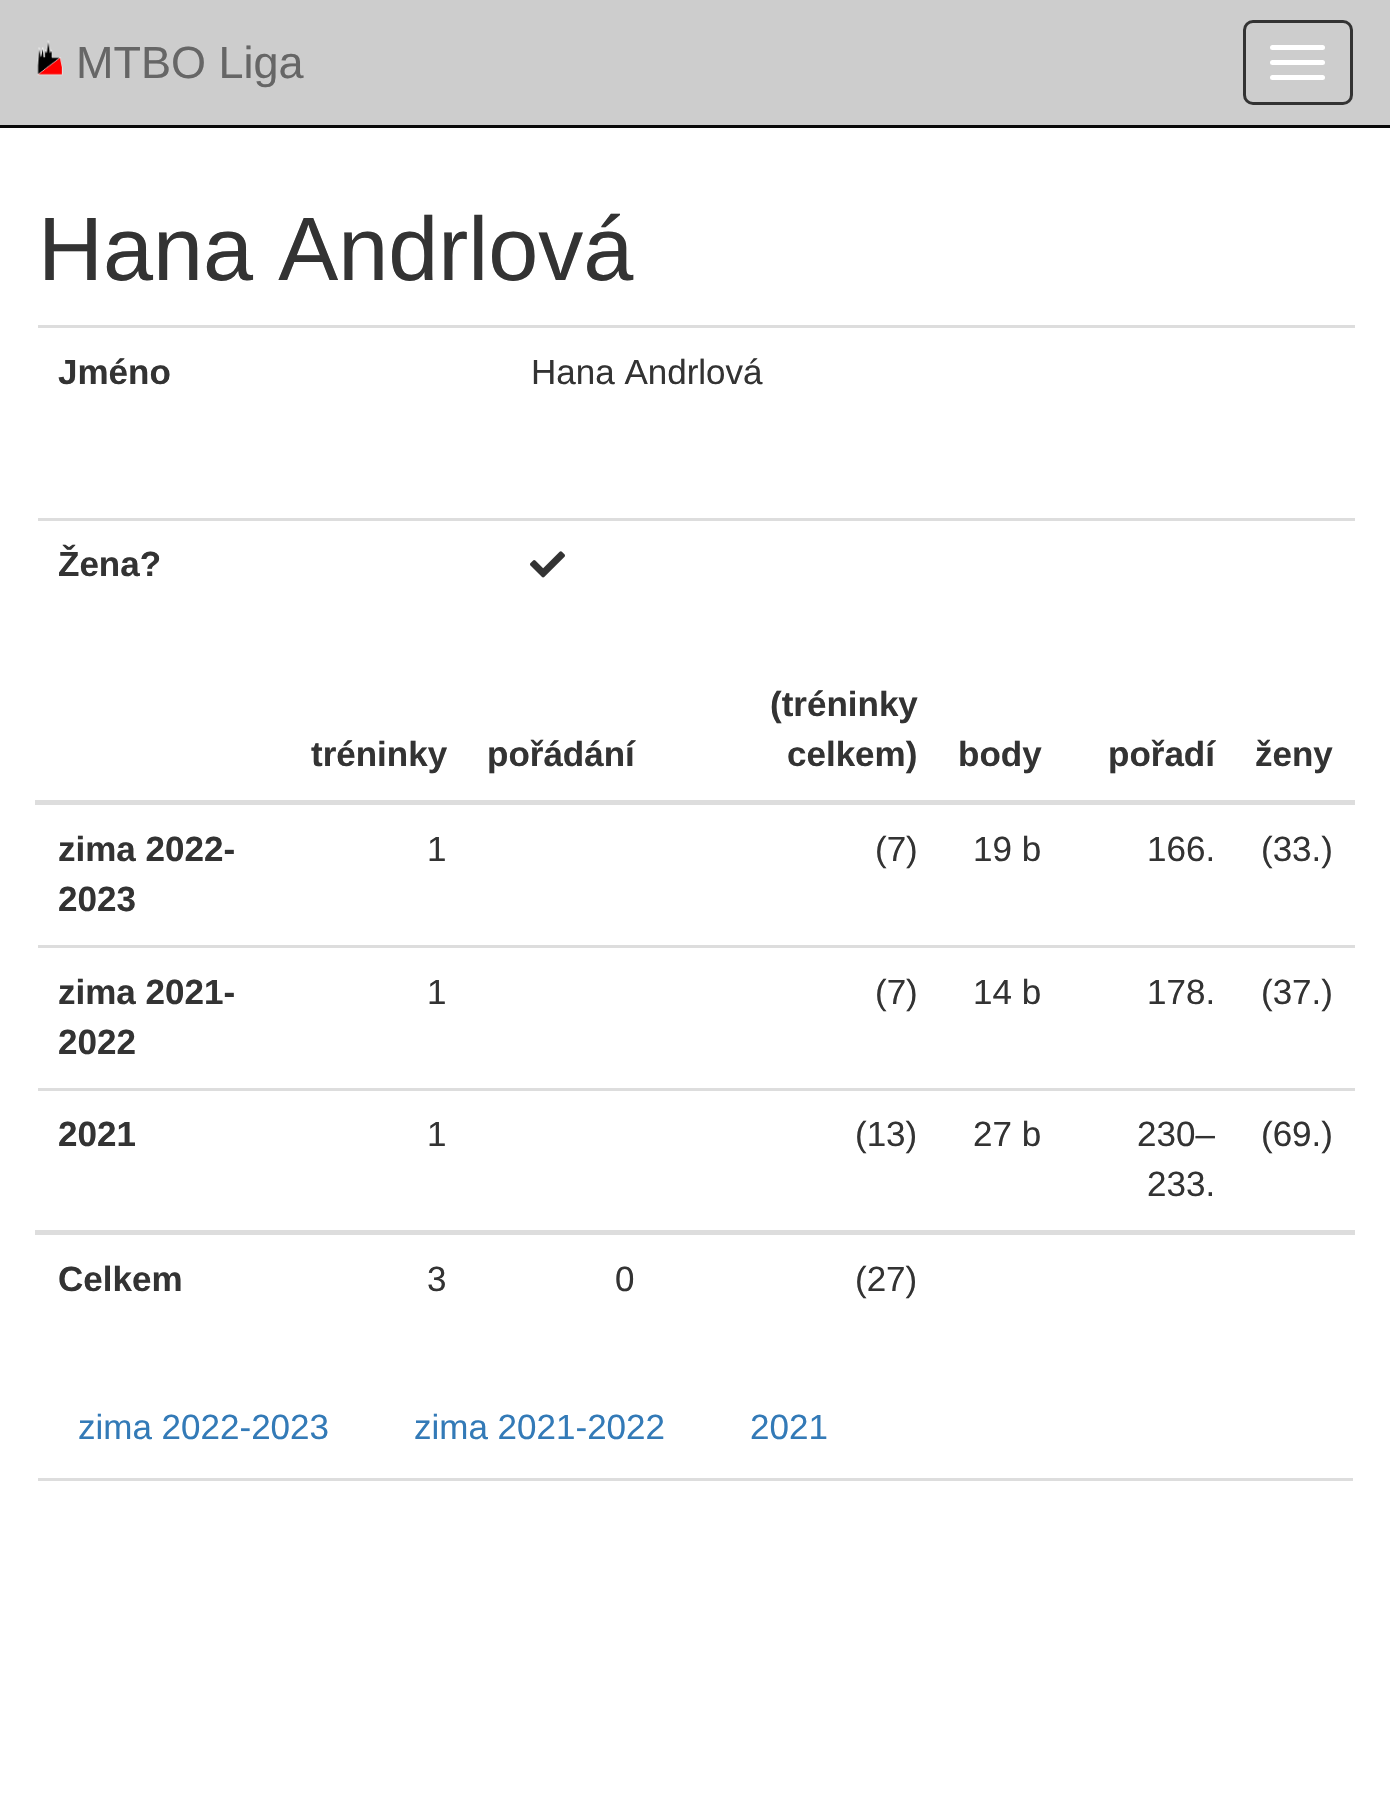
#include "include/core/SkBlurTypes.h"
#include "include/core/SkCanvas.h"
#include "include/core/SkData.h"
#include "include/core/SkFont.h"
#include "include/core/SkFontMgr.h"
#include "include/core/SkImage.h"
#include "include/core/SkMaskFilter.h"
#include "include/core/SkPaint.h"
#include "include/core/SkPathBuilder.h"
#include "include/core/SkTextBlob.h"
#include "include/effects/SkDashPathEffect.h"
#include "include/effects/SkGradientShader.h"
#include "include/utils/SkParsePath.h"

extern sk_sp<SkFontMgr> fontMgr;

void draw(SkCanvas* canvas) {
    SkPaint p;
    p.setAntiAlias(true);
    auto font = [&](const char* family, int weight, float size, bool italic = false) {
        SkFontStyle style(weight, SkFontStyle::kNormal_Width,
            italic ? SkFontStyle::kItalic_Slant : SkFontStyle::kUpright_Slant);
        SkFont result(fontMgr->matchFamilyStyle(family, style), size);
        result.setSubpixel(true);
        return result;
    };
    auto drawPhoto = [&](const char* path, float l, float t, float r, float b) {
        auto image = SkImages::DeferredFromEncodedData(SkData::MakeFromFileName(path));
        canvas->drawImageRect(image, SkRect::MakeLTRB(l, t, r, b), SkSamplingOptions());
    };
    canvas->clear(0xFFFFFFFF);
    p.setColor(0xFFCDCDCD);
    canvas->drawRect(SkRect::MakeLTRB(0, 0, 1390, 125), p);
    p.setColor(0xFF090909);
    canvas->drawRect(SkRect::MakeLTRB(0, 125, 1390, 128), p);
    drawPhoto("media/1.png", 37, 40, 63, 76);
    auto font1 = font("Liberation Sans", 400, 45);
    p.setColor(0xFF666666);
    canvas->drawString("MTBO Liga", 76, 78, font1, p);
    p.setStyle(SkPaint::kStroke_Style);
    p.setStrokeWidth(3);
    p.setColor(0xFF333333);
    canvas->drawRoundRect(SkRect::MakeLTRB(1244.5f, 21.5f, 1351.5f, 103.5f), 8.5f, 8.5f, p);
    p.setStyle(SkPaint::kFill_Style);
    p.setColor(0xFFFFFFFF);
    canvas->drawRoundRect(SkRect::MakeLTRB(1270, 45, 1325, 50), 2.5f, 2.5f, p);
    canvas->drawRoundRect(SkRect::MakeLTRB(1270, 60, 1325, 65), 2.5f, 2.5f, p);
    canvas->drawRoundRect(SkRect::MakeLTRB(1270, 75, 1325, 80), 2.5f, 2.5f, p);
    auto font2 = font("Liberation Sans", 400, 90);
    p.setColor(0xFF333333);
    canvas->drawString("Hana Andrlová", 38, 280, font2, p);
    auto font3 = font("Liberation Sans", 700, 35);
    canvas->drawString("Jméno", 58, 384, font3, p);
    p.setColor(0xFFDDDDDD);
    canvas->drawRect(SkRect::MakeLTRB(38, 325, 1355, 328), p);
    auto font4 = font("Liberation Sans", 400, 35);
    p.setColor(0xFF333333);
    canvas->drawString("Hana Andrlová", 531, 384, font4, p);
    p.setColor(0xFFDDDDDD);
    canvas->drawRect(SkRect::MakeLTRB(38, 518, 1355, 521), p);
    drawPhoto("media/2.png", 530, 551, 565, 578);
    p.setColor(0xFF333333);
    {
        const struct { const char* s; float x, y; } items[] = {
            {"Žena?", 58, 576},
            {"tréninky", 311, 766},
            {"pořádání", 487, 766},
            {"(tréninky", 770, 716},
            {"celkem)", 787, 766},
            {"body", 958, 766},
            {"pořadí", 1108, 766},
        };
        for (auto [s, x, y] : items) {
            canvas->drawString(s, x, y, font3, p);
        }
    }
    p.setColor(0xFFDDDDDD);
    canvas->drawRect(SkRect::MakeLTRB(35, 800, 1355, 805), p);
    p.setColor(0xFF333333);
    {
        const struct { const char* s; float x, y; } items[] = {
            {"ženy", 1255, 766},
            {"zima 2022-", 58, 861},
            {"2023", 58, 911},
        };
        for (auto [s, x, y] : items) {
            canvas->drawString(s, x, y, font3, p);
        }
    }
    {
        const struct { const char* s; float x, y; } items[] = {
            {"1", 427, 861},
            {"(7)", 875, 861},
            {"19 b", 973, 861},
            {"166.", 1147, 861},
            {"(33.)", 1261, 861},
        };
        for (auto [s, x, y] : items) {
            canvas->drawString(s, x, y, font4, p);
        }
    }
    canvas->drawString("zima 2021-", 58, 1004, font3, p);
    canvas->drawString("2022", 58, 1054, font3, p);
    {
        const struct { const char* s; float x, y; } items[] = {
            {"1", 427, 1004},
            {"(7)", 875, 1004},
            {"14 b", 973, 1004},
            {"178.", 1147, 1004},
        };
        for (auto [s, x, y] : items) {
            canvas->drawString(s, x, y, font4, p);
        }
    }
    p.setColor(0xFFDDDDDD);
    canvas->drawRect(SkRect::MakeLTRB(38, 945, 1355, 948), p);
    p.setColor(0xFF333333);
    canvas->drawString("(37.)", 1261, 1004, font4, p);
    canvas->drawString("2021", 58, 1146, font3, p);
    {
        const struct { const char* s; float x, y; } items[] = {
            {"1", 427, 1146},
            {"(13)", 855, 1146},
            {"27 b", 973, 1146},
            {"230–", 1137, 1146},
            {"233.", 1147, 1196},
        };
        for (auto [s, x, y] : items) {
            canvas->drawString(s, x, y, font4, p);
        }
    }
    p.setColor(0xFFDDDDDD);
    canvas->drawRect(SkRect::MakeLTRB(38, 1088, 1355, 1091), p);
    p.setColor(0xFF333333);
    canvas->drawString("(69.)", 1261, 1146, font4, p);
    p.setColor(0xFFDDDDDD);
    canvas->drawRect(SkRect::MakeLTRB(35, 1230, 1355, 1235), p);
    p.setColor(0xFF333333);
    canvas->drawString("Celkem", 58, 1291, font3, p);
    {
        const struct { const char* s; float x, y; } items[] = {
            {"3", 427, 1291},
            {"0", 615, 1291},
            {"(27)", 855, 1291},
        };
        for (auto [s, x, y] : items) {
            canvas->drawString(s, x, y, font4, p);
        }
    }
    p.setColor(0xFFDDDDDD);
    canvas->drawRect(SkRect::MakeLTRB(38, 1478, 1353, 1481), p);
    p.setColor(0xFF337AB7);
    {
        const struct { const char* s; float x, y; } items[] = {
            {"zima 2022-2023", 78, 1439},
            {"zima 2021-2022", 414, 1439},
            {"2021", 750, 1439},
        };
        for (auto [s, x, y] : items) {
            canvas->drawString(s, x, y, font4, p);
        }
    }
}
